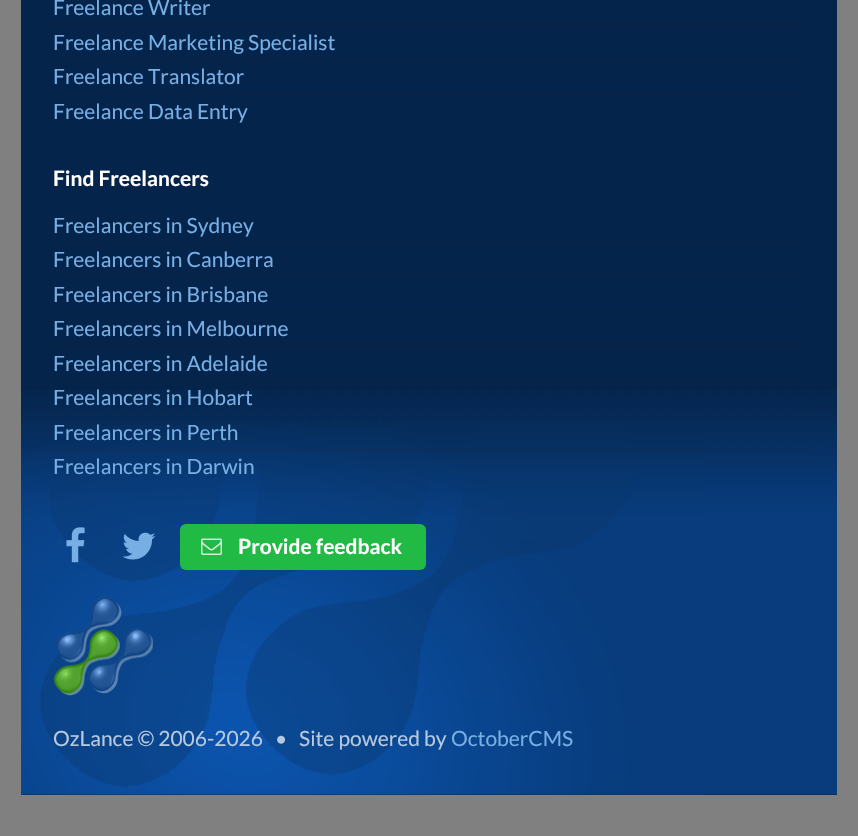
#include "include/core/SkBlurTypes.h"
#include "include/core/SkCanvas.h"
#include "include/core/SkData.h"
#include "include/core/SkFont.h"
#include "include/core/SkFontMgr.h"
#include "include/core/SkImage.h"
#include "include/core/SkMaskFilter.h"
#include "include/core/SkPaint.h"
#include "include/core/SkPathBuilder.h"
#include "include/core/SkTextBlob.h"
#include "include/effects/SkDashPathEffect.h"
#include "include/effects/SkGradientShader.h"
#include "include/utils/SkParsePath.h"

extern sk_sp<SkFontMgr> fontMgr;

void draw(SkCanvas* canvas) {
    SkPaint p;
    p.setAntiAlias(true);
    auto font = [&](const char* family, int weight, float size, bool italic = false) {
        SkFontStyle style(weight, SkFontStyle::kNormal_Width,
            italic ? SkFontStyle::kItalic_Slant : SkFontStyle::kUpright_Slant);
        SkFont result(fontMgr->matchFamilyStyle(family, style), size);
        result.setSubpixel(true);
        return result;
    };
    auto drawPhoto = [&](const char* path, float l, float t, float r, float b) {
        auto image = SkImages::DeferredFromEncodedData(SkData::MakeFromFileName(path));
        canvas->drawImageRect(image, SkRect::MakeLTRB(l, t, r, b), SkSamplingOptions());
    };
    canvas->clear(0xFF808080);
    p.setColor(0xFF05244B);
    canvas->drawRect(SkRect::MakeLTRB(21, 0, 837, 795), p);
    drawPhoto("media/1.png", 21, 390, 837, 795);
    drawPhoto("media/2.png", 21, 425, 704, 795);
    auto font1 = font("Lato", 400, 21);
    p.setColor(0xFF77AFE5);
    canvas->drawString("Freelance Writer", 53, 15, font1, p);
    p.setColor(0xFF092445);
    canvas->drawRect(SkRect::MakeLTRB(53, 24, 806, 26), p);
    p.setColor(0xFF77AFE5);
    canvas->drawString("Freelance Marketing Specialist", 53, 50, font1, p);
    p.setColor(0xFF092445);
    canvas->drawRect(SkRect::MakeLTRB(53, 59, 806, 61), p);
    p.setColor(0xFF77AFE5);
    canvas->drawString("Freelance Translator", 53, 84, font1, p);
    p.setColor(0xFF092445);
    canvas->drawRect(SkRect::MakeLTRB(53, 93, 806, 95), p);
    p.setColor(0xFF77AFE5);
    canvas->drawString("Freelance Data Entry", 53, 119, font1, p);
    auto font2 = font("Lato", 700, 21);
    p.setColor(0xFFFFFFFF);
    canvas->drawString("Find Freelancers", 53, 186, font2, p);
    p.setColor(0xFF77AFE5);
    canvas->drawString("Freelancers in Sydney", 53, 233, font1, p);
    p.setColor(0xFF092445);
    canvas->drawRect(SkRect::MakeLTRB(53, 242, 806, 244), p);
    p.setColor(0xFF77AFE5);
    canvas->drawString("Freelancers in Canberra", 53, 267, font1, p);
    p.setColor(0xFF092445);
    canvas->drawRect(SkRect::MakeLTRB(53, 276, 806, 278), p);
    p.setColor(0xFF77AFE5);
    canvas->drawString("Freelancers in Brisbane", 53, 302, font1, p);
    p.setColor(0xFF092445);
    canvas->drawRect(SkRect::MakeLTRB(53, 311, 806, 313), p);
    p.setColor(0xFF77AFE5);
    canvas->drawString("Freelancers in Melbourne", 53, 336, font1, p);
    p.setColor(0xFF092445);
    canvas->drawRect(SkRect::MakeLTRB(53, 345, 806, 347), p);
    p.setColor(0xFF77AFE5);
    canvas->drawString("Freelancers in Adelaide", 53, 371, font1, p);
    p.setColor(0xFF092445);
    canvas->drawRect(SkRect::MakeLTRB(53, 380, 806, 382), p);
    p.setColor(0xFF77AFE5);
    canvas->drawString("Freelancers in Hobart", 53, 405, font1, p);
    p.setColor(0xFF0A294F);
    canvas->drawRect(SkRect::MakeLTRB(53, 414, 806, 416), p);
    p.setColor(0xFF77AFE5);
    canvas->drawString("Freelancers in Perth", 53, 440, font1, p);
    p.setColor(0x26222426);
    canvas->drawRect(SkRect::MakeLTRB(53, 449, 806, 451), p);
    p.setColor(0xFF77AFE5);
    canvas->drawString("Freelancers in Darwin", 53, 474, font1, p);
    drawPhoto("media/3.png", 66, 527, 85, 563);
    drawPhoto("media/4.png", 122, 532, 155, 560);
    p.setColor(0xFF21BA45);
    canvas->drawRoundRect(SkRect::MakeLTRB(180, 524, 426, 570), 6, 6, p);
    drawPhoto("media/5.png", 201, 538, 222, 555);
    p.setColor(0xFFFFFFFF);
    canvas->drawString("Provide feedback", 238, 554, font2, p);
    drawPhoto("media/6.png", 53, 596, 153, 696);
    p.setColor(0xFFB6C9E0);
    {
        const struct { const char* s; float x, y; } items[] = {
            {"OzLance © 2006-2026", 53, 746},
            {"•", 275, 746},
            {"Site powered by", 299, 746},
        };
        for (auto [s, x, y] : items) {
            canvas->drawString(s, x, y, font1, p);
        }
    }
    p.setColor(0xFF77AFE5);
    canvas->drawString("OctoberCMS", 451, 746, font1, p);
}
